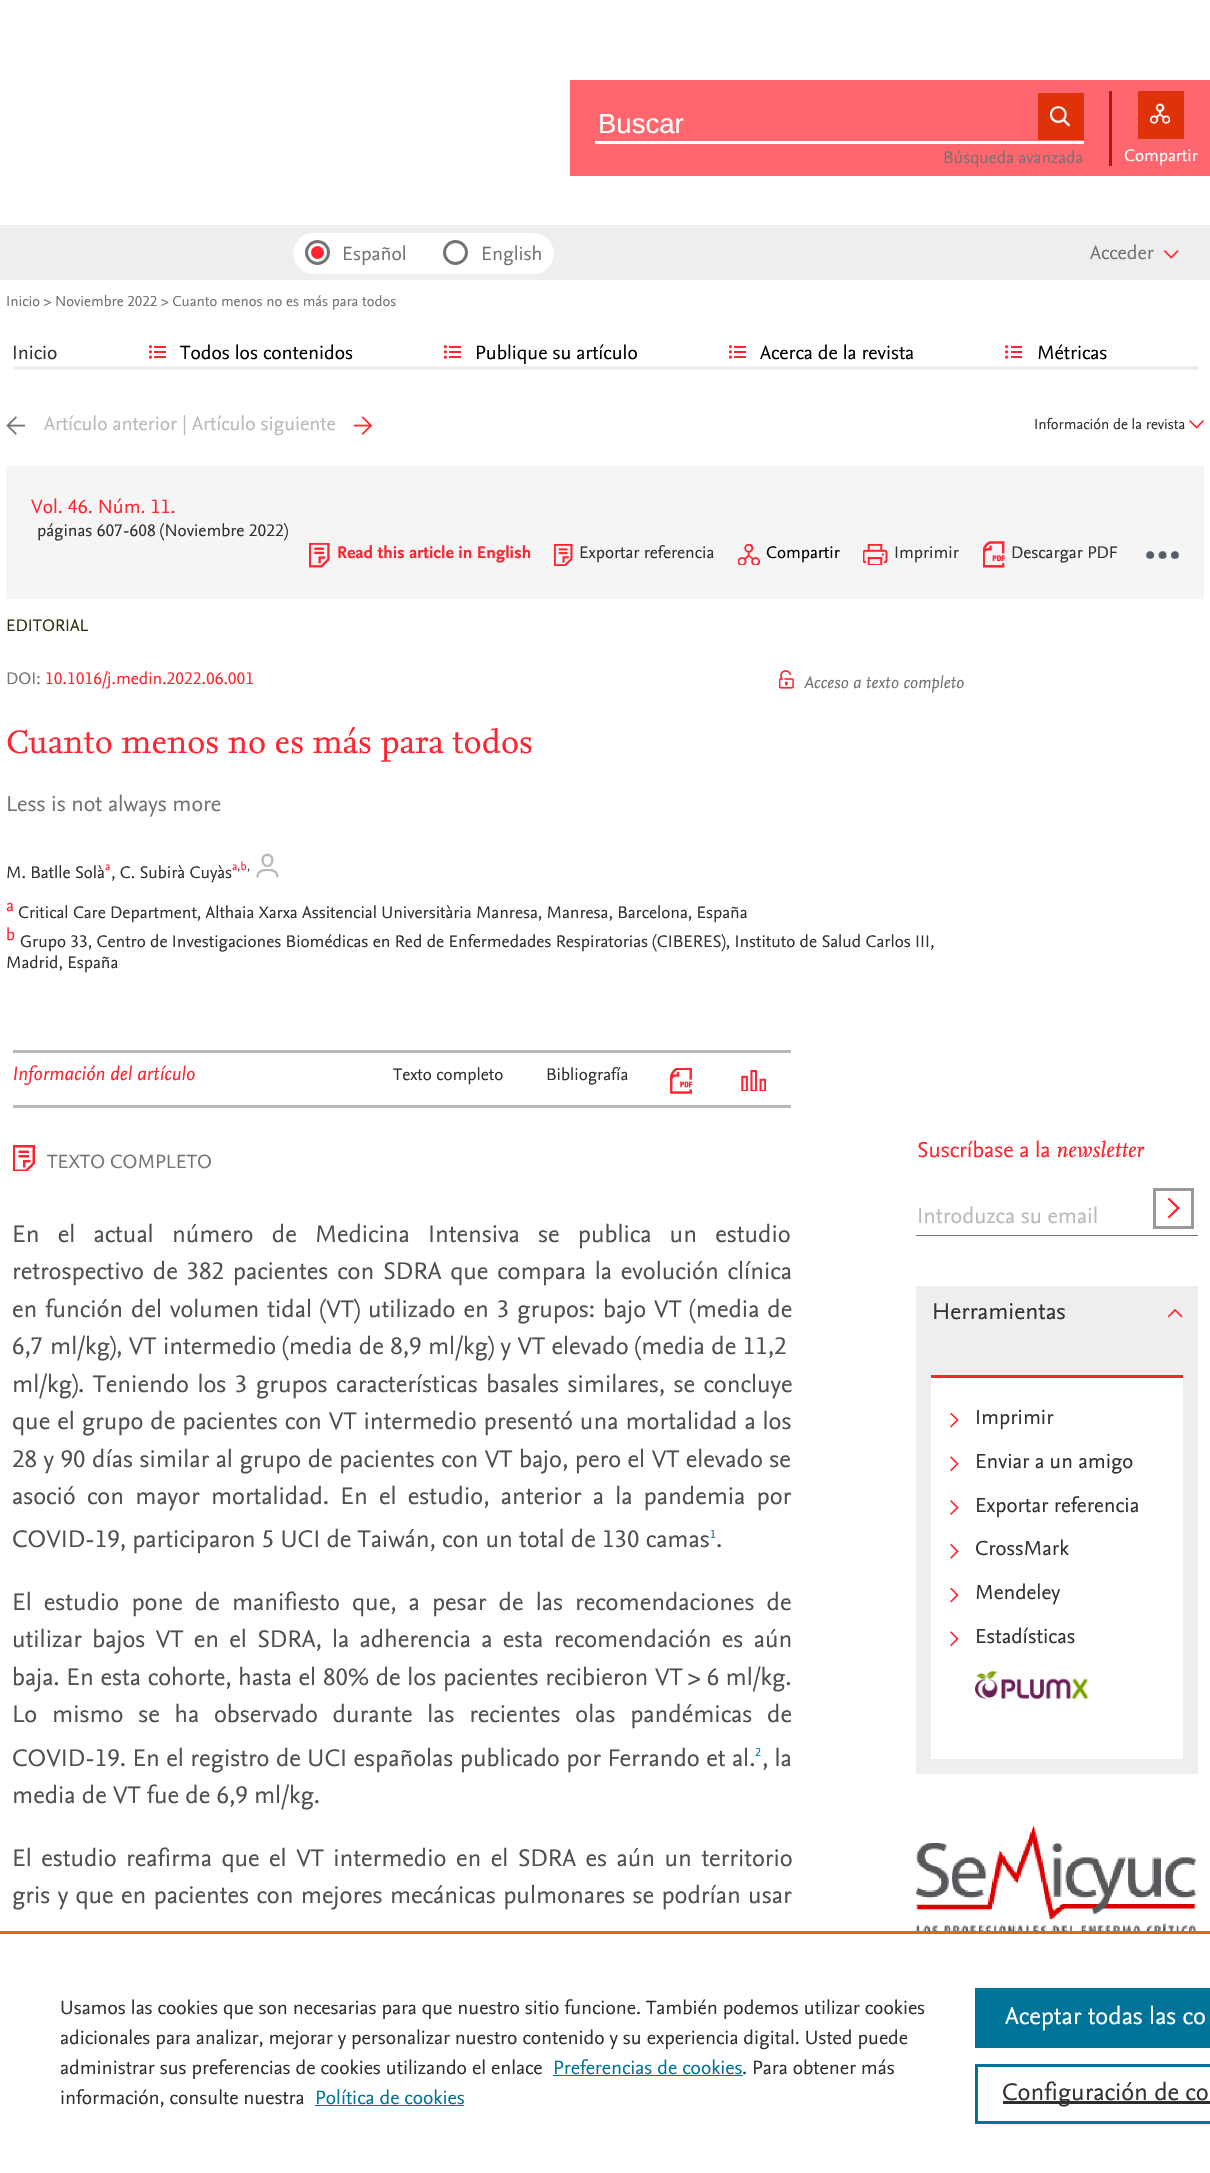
#include "include/core/SkBlurTypes.h"
#include "include/core/SkCanvas.h"
#include "include/core/SkData.h"
#include "include/core/SkFont.h"
#include "include/core/SkFontMgr.h"
#include "include/core/SkImage.h"
#include "include/core/SkMaskFilter.h"
#include "include/core/SkPaint.h"
#include "include/core/SkPathBuilder.h"
#include "include/core/SkTextBlob.h"
#include "include/effects/SkDashPathEffect.h"
#include "include/effects/SkGradientShader.h"
#include "include/utils/SkParsePath.h"

extern sk_sp<SkFontMgr> fontMgr;

void draw(SkCanvas* canvas) {
    SkPaint p;
    p.setAntiAlias(true);
    auto font = [&](const char* family, int weight, float size, bool italic = false) {
        SkFontStyle style(weight, SkFontStyle::kNormal_Width,
            italic ? SkFontStyle::kItalic_Slant : SkFontStyle::kUpright_Slant);
        SkFont result(fontMgr->matchFamilyStyle(family, style), size);
        result.setSubpixel(true);
        return result;
    };
    auto drawTracked = [&](const char* s, float x, float y, const SkFont& font, const SkPaint& ink, float letter, float word) {
        std::vector<SkGlyphID> glyphs(font.countText(s, strlen(s), SkTextEncoding::kUTF8));
        std::vector<float> xs(glyphs.size());
        font.textToGlyphs(s, strlen(s), SkTextEncoding::kUTF8, glyphs);
        font.getXPos(glyphs, xs, x);
        float extra = 0;
        for (size_t i = 0; i < glyphs.size(); i++) {
            xs[i] += extra;
            extra += letter + word * (glyphs[i] == font.unicharToGlyph(' '));
        }
        canvas->drawTextBlob(SkTextBlob::MakeFromPosHGlyphs(glyphs, xs, y, font), 0, 0, ink);
    };
    auto drawPhoto = [&](const char* path, float l, float t, float r, float b) {
        auto image = SkImages::DeferredFromEncodedData(SkData::MakeFromFileName(path));
        canvas->drawImageRect(image, SkRect::MakeLTRB(l, t, r, b), SkSamplingOptions());
    };
    canvas->clear(0xFFFFFFFF);
    p.setColor(0xFFFF666E);
    canvas->drawRect(SkRect::MakeLTRB(570, 80, 1210, 176), p);
    p.setColor(0xFFFFFFFF);
    canvas->drawRect(SkRect::MakeLTRB(595, 141, 1084, 144), p);
    auto font1 = font("Liberation Sans", 400, 27.5f);
    canvas->drawString("Buscar", 598, 133, font1, p);
    p.setColor(0xFFE0320A);
    canvas->drawRect(SkRect::MakeLTRB(1038, 93, 1084, 140), p);
    drawPhoto("media/1.png", 1050, 106, 1070, 127);
    auto font2 = font("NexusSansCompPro", 400, 17.5f);
    p.setColor(0xFF747474);
    canvas->drawString("Búsqueda avanzada", 943, 163, font2, p);
    p.setColor(0xFFA91D0C);
    canvas->drawRect(SkRect::MakeLTRB(1109, 91, 1112, 166), p);
    p.setColor(0xFFE0320A);
    canvas->drawRect(SkRect::MakeLTRB(1138, 91, 1184, 139), p);
    drawPhoto("media/2.png", 1150, 103, 1170, 124);
    p.setColor(0xFFFFFFFF);
    canvas->drawString("Compartir", 1124, 161, font2, p);
    p.setColor(0xFFEEEEEE);
    canvas->drawRect(SkRect::MakeLTRB(0, 225, 1210, 280), p);
    p.setColor(0xFFFFFFFF);
    canvas->drawRoundRect(SkRect::MakeLTRB(293, 233, 554, 274), 20.5f, 20.5f, p);
    p.setStyle(SkPaint::kStroke_Style);
    p.setStrokeWidth(3);
    p.setColor(0xFF737373);
    canvas->drawCircle(317.5f, 252.5f, 11, p);
    auto font3 = font("NexusSansCompPro", 400, 20);
    p.setStyle(SkPaint::kFill_Style);
    p.setColor(0xFF747474);
    canvas->drawString("Español", 342, 260, font3, p);
    p.setColor(0xFFFF2430);
    canvas->drawCircle(317.5f, 252.5f, 6.5f, p);
    p.setStyle(SkPaint::kStroke_Style);
    p.setColor(0xFF737373);
    canvas->drawCircle(455.5f, 252.5f, 11, p);
    p.setStyle(SkPaint::kFill_Style);
    p.setColor(0xFF747474);
    canvas->drawString("English", 481, 260, font3, p);
    drawPhoto("media/3.png", 1164, 250, 1179, 259);
    canvas->drawString("Acceder", 1090, 259, font3, p);
    auto font4 = font("NexusSansCompPro", 400, 15);
    canvas->drawString("Inicio > Noviembre 2022 > Cuanto menos no es más para todos", 6, 306, font4, p);
    p.setColor(0xFFEEEEEE);
    canvas->drawRect(SkRect::MakeLTRB(13, 366, 1198, 370), p);
    p.setColor(0xFF323232);
    canvas->drawString("Inicio", 12, 359, font3, p);
    drawPhoto("media/4.png", 149, 345, 166, 359);
    p.setColor(0xFF000000);
    canvas->drawString("Todos los contenidos", 180, 359, font3, p);
    drawPhoto("media/4.png", 444, 345, 461, 359);
    canvas->drawString("Publique su artículo", 475, 359, font3, p);
    drawPhoto("media/4.png", 729, 345, 746, 359);
    canvas->drawString("Acerca de la revista", 760, 359, font3, p);
    drawPhoto("media/5.png", 1005, 345, 1022, 359);
    canvas->drawString("Métricas", 1037, 359, font3, p);
    drawPhoto("media/6.png", 6, 416, 25, 435);
    p.setColor(0xFFB9B9B9);
    canvas->drawString("Artículo anterior | Artículo siguiente", 44, 430, font3, p);
    drawPhoto("media/7.png", 354, 416, 373, 435);
    p.setColor(0xFFF5F5F5);
    canvas->drawRect(SkRect::MakeLTRB(6, 466, 1204, 599), p);
    p.setColor(0xFFFF2430);
    canvas->drawString("Vol. 46. Núm. 11.", 31, 513, font3, p);
    p.setColor(0xFF323232);
    canvas->drawString("páginas 607-608 (Noviembre 2022)", 37, 536, font2, p);
    drawPhoto("media/8.png", 309, 543, 330, 568);
    auto font5 = font("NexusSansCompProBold", 700, 17.5f);
    p.setColor(0xFFFF2430);
    canvas->drawString("Read this article in English", 337, 558, font5, p);
    drawPhoto("media/9.png", 554, 544, 573, 566);
    p.setColor(0xFF323232);
    canvas->drawString("Exportar referencia", 579, 558, font2, p);
    drawPhoto("media/10.png", 738, 544, 760, 565);
    p.setColor(0xFF000000);
    canvas->drawString("Compartir", 766, 558, font2, p);
    drawPhoto("media/11.png", 863, 544, 888, 565);
    p.setColor(0xFF323232);
    canvas->drawString("Imprimir", 894, 558, font2, p);
    drawPhoto("media/12.png", 983, 541, 1005, 568);
    canvas->drawString("Descargar PDF", 1011, 558, font2, p);
    drawPhoto("media/13.png", 1146, 551, 1179, 559);
    p.setColor(0xFF323213);
    canvas->drawString("EDITORIAL", 6, 631, font2, p);
    p.setColor(0xFF747474);
    canvas->drawString("DOI:", 6, 684, font2, p);
    p.setColor(0xFFFF2430);
    canvas->drawString("10.1016/j.medin.2022.06.001", 45, 684, font2, p);
    drawPhoto("media/14.png", 779, 670, 794, 689);
    auto font6 = font("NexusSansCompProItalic", 400, 17.5f, true);
    p.setColor(0xFF747474);
    canvas->drawString("Acceso a texto completo", 804, 688, font6, p);
    auto font7 = font("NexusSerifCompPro", 400, 33.75f);
    p.setColor(0xFFFF2430);
    canvas->drawString("Cuanto menos no es más para todos", 6, 753, font7, p);
    auto font8 = font("NexusSansCompPro", 400, 22.5f);
    p.setColor(0xFF747474);
    canvas->drawString("Less is not always more", 6, 811, font8, p);
    p.setColor(0xFF323232);
    canvas->drawString("M. Batlle Solà", 6, 878, font2, p);
    auto font9 = font("NexusSansCompPro", 400, 12);
    p.setColor(0xFFFF2430);
    canvas->drawString("a", 105, 870, font9, p);
    p.setColor(0xFF323232);
    canvas->drawString(", C. Subirà Cuyàs", 111, 878, font2, p);
    p.setColor(0xFFFF2430);
    canvas->drawString("a b", 232, 870, font9, p);
    drawPhoto("media/15.png", 256, 853, 279, 878);
    p.setColor(0xFF323232);
    canvas->drawString(",", 237, 870, font9, p);
    canvas->drawString(",", 247, 870, font9, p);
    p.setColor(0xFFFF2430);
    canvas->drawString("a", 6, 911, font2, p);
    p.setColor(0xFF323232);
    canvas->drawString("Critical Care Department, Althaia Xarxa Assitencial Universitària Manresa, Manresa, Barcelona, España", 18, 918, font2, p);
    p.setColor(0xFFFF2430);
    canvas->drawString("b", 6, 940, font2, p);
    p.setColor(0xFF323232);
    canvas->drawString("Grupo 33, Centro de Investigaciones Biomédicas en Red de Enfermedades Respiratorias (CIBERES), Instituto de Salud Carlos III,", 20, 947, font2, p);
    canvas->drawString("Madrid, España", 6, 968, font2, p);
    canvas->drawString("Información de la revista", 1034, 429, font4, p);
    drawPhoto("media/16.png", 1189, 420, 1204, 429);
    p.setColor(0xFFB9B9B9);
    canvas->drawRect(SkRect::MakeLTRB(13, 1050, 791, 1053), p);
    canvas->drawRect(SkRect::MakeLTRB(13, 1105, 791, 1108), p);
    auto font10 = font("NexusSansCompProItalic", 400, 20, true);
    p.setColor(0xFFFF2430);
    canvas->drawString("Información del artículo", 12, 1080, font10, p);
    p.setColor(0xFF323232);
    canvas->drawString("Texto completo", 393, 1080, font2, p);
    canvas->drawString("Bibliografía", 546, 1080, font2, p);
    drawPhoto("media/17.png", 670, 1068, 693, 1094);
    drawPhoto("media/18.png", 741, 1070, 766, 1091);
    drawPhoto("media/19.png", 13, 1145, 35, 1171);
    p.setColor(0xFF747474);
    canvas->drawString("TEXTO COMPLETO", 47, 1168, font3, p);
    auto font11 = font("NexusSansCompPro", 400, 25);
    p.setColor(0xFF505050);
    drawTracked("En el actual número de Medicina Intensiva se publica un estudio", 12, 1242, font11, p, 0, 12);
    drawTracked("retrospectivo de 382 pacientes con SDRA que compara la evolución clínica", 12, 1279, font11, p, 0, 2.6f);
    drawTracked("en función del volumen tidal (VT) utilizado en 3 grupos: bajo VT (media de", 12, 1317, font11, p, 0, 1.7f);
    canvas->drawString("6,7", 12, 1354, font11, p);
    drawTracked("ml/kg), VT intermedio (media de 8,9 ml/kg) y VT elevado (media de 11,2", 50, 1354, font11, p, 0, 0.25f);
    drawTracked("ml/kg). Teniendo los 3 grupos características basales similares, se concluye", 12, 1392, font11, p, 0, 2.25f);
    drawTracked("que el grupo de pacientes con VT intermedio presentó una mortalidad a los", 12, 1429, font11, p, 0, 0.75f);
    drawTracked("28 y 90 días similar al grupo de pacientes con VT bajo, pero el VT elevado se", 12, 1467, font11, p, 0, 0.3f);
    drawTracked("asoció con mayor mortalidad. En el estudio, anterior a la pandemia por", 12, 1504, font11, p, 0, 5);
    canvas->drawString("COVID-19, participaron 5 UCI de Taiwán, con un total de 130 camas .", 12, 1547, font11, p);
    p.setColor(0xFF00759B);
    canvas->drawString("1", 710, 1538, font9, p);
    p.setColor(0xFF505050);
    drawTracked("El estudio pone de manifiesto que, a pesar de las recomendaciones de", 12, 1610, font11, p, 0, 5.9f);
    drawTracked("utilizar bajos VT en el SDRA, la adherencia a esta recomendación es aún", 12, 1647, font11, p, 0, 4.1f);
    drawTracked("baja. En esta cohorte, hasta el 80% de los pacientes recibieron VT", 12, 1685, font11, p, 0, 0.5f);
    canvas->drawString("> 6 ml/kg.", 688, 1685, font11, p);
    drawTracked("Lo mismo se ha observado durante las recientes olas pandémicas de", 12, 1722, font11, p, 0, 8.5f);
    drawTracked("COVID-19. En el registro de UCI españolas publicado por Ferrando et al.", 12, 1766, font11, p, 0, 0.25f);
    p.setColor(0xFF00759B);
    canvas->drawString("2", 755, 1756, font9, p);
    p.setColor(0xFF505050);
    canvas->drawString(", la", 762, 1766, font11, p);
    canvas->drawString("media de VT fue de 6,9 ml/kg.", 12, 1803, font11, p);
    drawTracked("El estudio reafirma que el VT intermedio en el SDRA es aún un territorio", 12, 1866, font11, p, 0, 3.25f);
    drawTracked("gris y que en pacientes con mejores mecánicas pulmonares se podrían usar", 12, 1903, font11, p, 0, 1.1f);
    p.setColor(0xFF737373);
    canvas->drawRect(SkRect::MakeLTRB(916, 1235, 1198, 1236), p);
    p.setColor(0xFFFF2430);
    canvas->drawString("Suscríbase a la", 917, 1157, font8, p);
    auto font12 = font("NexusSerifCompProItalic", 400, 22.5f, true);
    canvas->drawString("newsletter", 1056, 1157, font12, p);
    p.setColor(0xFFB9B9B9);
    canvas->drawString("Introduzca su email", 917, 1223, font8, p);
    canvas->save();
    canvas->clipRect(SkRect::MakeLTRB(1168, 1198, 1180, 1219));
    p.setColor(0xFFFF2430);
    canvas->drawPath(SkPathBuilder().moveTo(1169, 1218.5f).lineTo(1167.5f, 1217).lineTo(1176.5f, 1208).lineTo(1167.5f, 1199).lineTo(1169, 1197.5f).lineTo(1180, 1208).close().detach(), p);
    canvas->restore();
    p.setStyle(SkPaint::kStroke_Style);
    p.setColor(0xFF999999);
    canvas->drawRect(SkRect::MakeLTRB(1154.5f, 1189.5f, 1192.5f, 1227.5f), p);
    p.setStyle(SkPaint::kFill_Style);
    p.setColor(0xFFEEEEEE);
    canvas->drawRect(SkRect::MakeLTRB(916, 1286, 1198, 1774), p);
    drawPhoto("media/20.png", 1168, 1309, 1183, 1318);
    auto font13 = font("NexusSansCompPro", 400, 23.75f);
    p.setColor(0xFF323232);
    canvas->drawString("Herramientas", 932, 1319, font13, p);
    p.setColor(0xFFFFFFFF);
    canvas->drawRect(SkRect::MakeLTRB(931, 1378, 1183, 1759), p);
    p.setColor(0xFFFF2430);
    canvas->drawRect(SkRect::MakeLTRB(931, 1375, 1183, 1378), p);
    drawPhoto("media/21.png", 950, 1413, 959, 1428);
    auto font14 = font("NexusSansCompPro", 400, 21.25f);
    p.setColor(0xFF323232);
    canvas->drawString("Imprimir", 975, 1424, font14, p);
    drawPhoto("media/22.png", 950, 1456, 959, 1471);
    canvas->drawString("Enviar a un amigo", 975, 1468, font14, p);
    drawPhoto("media/23.png", 950, 1500, 959, 1515);
    canvas->drawString("Exportar referencia", 975, 1512, font14, p);
    drawPhoto("media/24.png", 950, 1544, 959, 1559);
    canvas->drawString("CrossMark", 975, 1555, font14, p);
    drawPhoto("media/21.png", 950, 1588, 959, 1603);
    canvas->drawString("Mendeley", 975, 1599, font14, p);
    drawPhoto("media/22.png", 950, 1631, 959, 1646);
    canvas->drawString("Estadísticas", 975, 1643, font14, p);
    drawPhoto("media/25.png", 975, 1671, 1088, 1699);
    drawPhoto("media/26.png", 916, 1825, 1196, 1931);
    p.setColor(0xFFEB6500);
    canvas->drawRect(SkRect::MakeLTRB(0, 1931, 1210, 1934), p);
    p.setColor(0xFF323232);
    {
        const struct { const char* s; float x, y; } items[] = {
            {"Usamos las cookies que son necesarias para que nuestro sitio funcione. También podemos utilizar cookies", 60, 2014},
            {"adicionales para analizar, mejorar y personalizar nuestro contenido y su experiencia digital. Usted puede", 60, 2044},
            {"administrar sus preferencias de cookies utilizando el enlace", 60, 2074},
        };
        for (auto [s, x, y] : items) {
            canvas->drawString(s, x, y, font3, p);
        }
    }
    p.setColor(0xFF00759B);
    canvas->drawString("Preferencias de cookies", 553, 2074, font3, p);
    p.setColor(0xFF007398);
    canvas->drawRect(SkRect::MakeLTRB(553, 2075, 743, 2076), p);
    p.setColor(0xFF323232);
    canvas->drawString(". Para obtener más", 742, 2074, font3, p);
    canvas->drawString("información, consulte nuestra", 60, 2104, font3, p);
    p.setColor(0xFF00759B);
    canvas->drawString("Política de cookies", 315, 2104, font3, p);
    p.setColor(0xFF007398);
    canvas->drawRect(SkRect::MakeLTRB(315, 2105, 464, 2106), p);
    canvas->drawRect(SkRect::MakeLTRB(975, 1988, 1210, 2048), p);
    p.setColor(0xFFFFFFFF);
    canvas->drawString("Aceptar todas las co", 1005, 2024, font11, p);
    p.setStyle(SkPaint::kStroke_Style);
    p.setColor(0xFF007398);
    canvas->drawRect(SkRect::MakeLTRB(976.5f, 2065.5f, 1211.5f, 2122.5f), p);
    p.setStyle(SkPaint::kFill_Style);
    p.setColor(0xFF2E2E2E);
    canvas->drawRect(SkRect::MakeLTRB(1003, 2101, 1210, 2104), p);
    p.setColor(0xFF323232);
    canvas->drawString("Configuración de co", 1002, 2100, font11, p);
}
